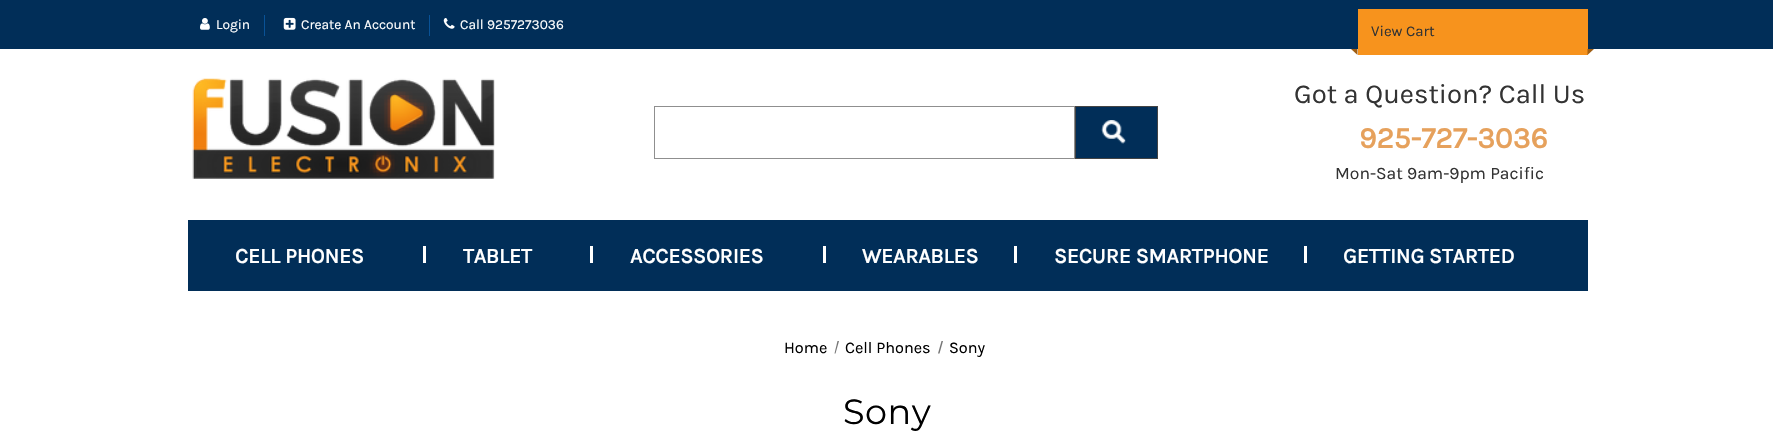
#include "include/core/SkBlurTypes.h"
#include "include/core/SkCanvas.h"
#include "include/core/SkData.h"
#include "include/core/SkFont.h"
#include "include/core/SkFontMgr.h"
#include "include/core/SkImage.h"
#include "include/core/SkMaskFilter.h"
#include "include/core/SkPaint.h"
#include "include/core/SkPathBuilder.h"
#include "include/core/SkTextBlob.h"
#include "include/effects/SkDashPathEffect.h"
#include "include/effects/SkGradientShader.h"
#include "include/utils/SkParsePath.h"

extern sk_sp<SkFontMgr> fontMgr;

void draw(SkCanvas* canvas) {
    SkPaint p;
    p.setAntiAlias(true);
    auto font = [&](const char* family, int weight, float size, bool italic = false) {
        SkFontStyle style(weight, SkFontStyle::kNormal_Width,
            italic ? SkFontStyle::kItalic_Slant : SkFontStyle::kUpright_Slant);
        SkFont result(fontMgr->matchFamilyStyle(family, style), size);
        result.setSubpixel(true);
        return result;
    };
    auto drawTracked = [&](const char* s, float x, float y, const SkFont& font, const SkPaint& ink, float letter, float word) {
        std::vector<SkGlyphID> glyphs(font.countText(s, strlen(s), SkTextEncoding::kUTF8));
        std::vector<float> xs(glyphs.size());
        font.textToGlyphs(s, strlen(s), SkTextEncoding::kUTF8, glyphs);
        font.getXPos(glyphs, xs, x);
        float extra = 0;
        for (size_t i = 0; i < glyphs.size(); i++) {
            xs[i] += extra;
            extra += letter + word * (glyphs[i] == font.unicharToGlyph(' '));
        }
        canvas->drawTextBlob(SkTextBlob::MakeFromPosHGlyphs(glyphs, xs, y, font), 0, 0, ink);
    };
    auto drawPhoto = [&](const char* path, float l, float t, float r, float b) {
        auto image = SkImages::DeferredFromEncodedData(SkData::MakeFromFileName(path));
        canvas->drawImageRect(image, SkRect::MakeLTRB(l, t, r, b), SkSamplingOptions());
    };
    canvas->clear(0xFFFFFFFF);
    p.setColor(0xFF012E58);
    canvas->drawRect(SkRect::MakeLTRB(0, 0, 1773, 49), p);
    p.setColor(0xFF095296);
    canvas->drawRect(SkRect::MakeLTRB(264, 15, 265, 36), p);
    drawPhoto("media/1.png", 200, 18, 210, 30);
    auto font1 = font("Karla", 400, 13.75f);
    p.setColor(0xFFFFFFFF);
    canvas->drawString("Login", 216, 29, font1, p);
    p.setColor(0xFF095296);
    canvas->drawRect(SkRect::MakeLTRB(429, 15, 430, 36), p);
    drawPhoto("media/2.png", 283, 17, 296, 30);
    p.setColor(0xFFFFFFFF);
    canvas->drawString("Create An Account", 301, 29, font1, p);
    drawPhoto("media/3.png", 443, 18, 455, 29);
    canvas->drawString("Call 9257273036", 460, 29, font1, p);
    p.setColor(0xFFF7931D);
    canvas->drawRect(SkRect::MakeLTRB(1358, 9, 1588, 55), p);
    auto font2 = font("Karla", 400, 15);
    p.setColor(0xFF333333);
    canvas->drawString("View Cart", 1371, 36, font2, p);
    p.setColor(0xFFA05E13);
    canvas->drawPath(SkPathBuilder().moveTo(1357.5f, 49).lineTo(1357.5f, 55).lineTo(1351, 49).close().detach(), p);
    canvas->drawPath(SkPathBuilder().moveTo(1587.5f, 49).lineTo(1594, 49).lineTo(1587.5f, 55).close().detach(), p);
    drawPhoto("media/4.png", 192, 78, 495, 179);
    p.setStyle(SkPaint::kStroke_Style);
    p.setStrokeWidth(1);
    p.setColor(0xFF8F8F8F);
    canvas->drawRect(SkRect::MakeLTRB(654.5f, 106.5f, 1074.5f, 158.5f), p);
    p.setStyle(SkPaint::kFill_Style);
    p.setColor(0xFF012E58);
    canvas->drawRect(SkRect::MakeLTRB(1076, 107, 1157, 158), p);
    drawPhoto("media/5.png", 1101, 120, 1126, 144);
    p.setStyle(SkPaint::kStroke_Style);
    p.setColor(0xFF444444);
    canvas->drawRect(SkRect::MakeLTRB(1075.5f, 106.5f, 1157.5f, 158.5f), p);
    auto font3 = font("Karla", 400, 27.5f);
    p.setStyle(SkPaint::kFill_Style);
    p.setColor(0xFF333333);
    canvas->drawString("Got a Question? Call Us", 1294, 103, font3, p);
    auto font4 = font("Karla", 700, 30);
    p.setColor(0xFFE6A15C);
    canvas->drawString("925-727-3036", 1359, 148, font4, p);
    auto font5 = font("Karla", 400, 17.5f);
    p.setColor(0xFF333333);
    canvas->drawString("Mon-Sat 9am-9pm Pacific", 1335, 179, font5, p);
    p.setColor(0xFF012E58);
    canvas->drawRect(SkRect::MakeLTRB(188, 220, 1588, 291), p);
    auto font6 = font("Karla", 700, 21.25f);
    p.setColor(0xFFFFFFFF);
    canvas->drawString("CELL PHONES", 235, 263, font6, p);
    canvas->drawRect(SkRect::MakeLTRB(423, 246, 426, 263), p);
    canvas->drawString("TABLET", 463, 263, font6, p);
    canvas->drawRect(SkRect::MakeLTRB(590, 246, 593, 263), p);
    canvas->drawString("ACCESSORIES", 630, 263, font6, p);
    canvas->drawRect(SkRect::MakeLTRB(823, 246, 826, 263), p);
    canvas->drawString("WEARABLES", 862, 263, font6, p);
    canvas->drawRect(SkRect::MakeLTRB(1014, 246, 1017, 263), p);
    canvas->drawString("SECURE SMARTPHONE", 1054, 263, font6, p);
    canvas->drawRect(SkRect::MakeLTRB(1304, 246, 1307, 263), p);
    canvas->drawString("GETTING STARTED", 1343, 263, font6, p);
    auto font7 = font("Karla", 400, 16.25f);
    p.setColor(0xFF000000);
    canvas->drawString("Home", 784, 353, font7, p);
    p.setColor(0xFF757575);
    canvas->drawPath(SkPathBuilder().moveTo(837.5f, 341).lineTo(839, 341).lineTo(835.5f, 353.5f).lineTo(834.5f, 353.5f).close().detach(), p);
    p.setColor(0xFF000000);
    canvas->drawString("Cell Phones", 845, 353, font7, p);
    p.setColor(0xFF757575);
    canvas->drawPath(SkPathBuilder().moveTo(941.5f, 341).lineTo(943, 341).lineTo(939.5f, 353.5f).lineTo(938, 353.5f).close().detach(), p);
    p.setColor(0xFF000000);
    canvas->drawString("Sony", 949, 353, font7, p);
    auto font8 = font("Montserrat", 400, 35);
    drawTracked("Sony", 843, 424, font8, p, 0.5f, 0);
}
